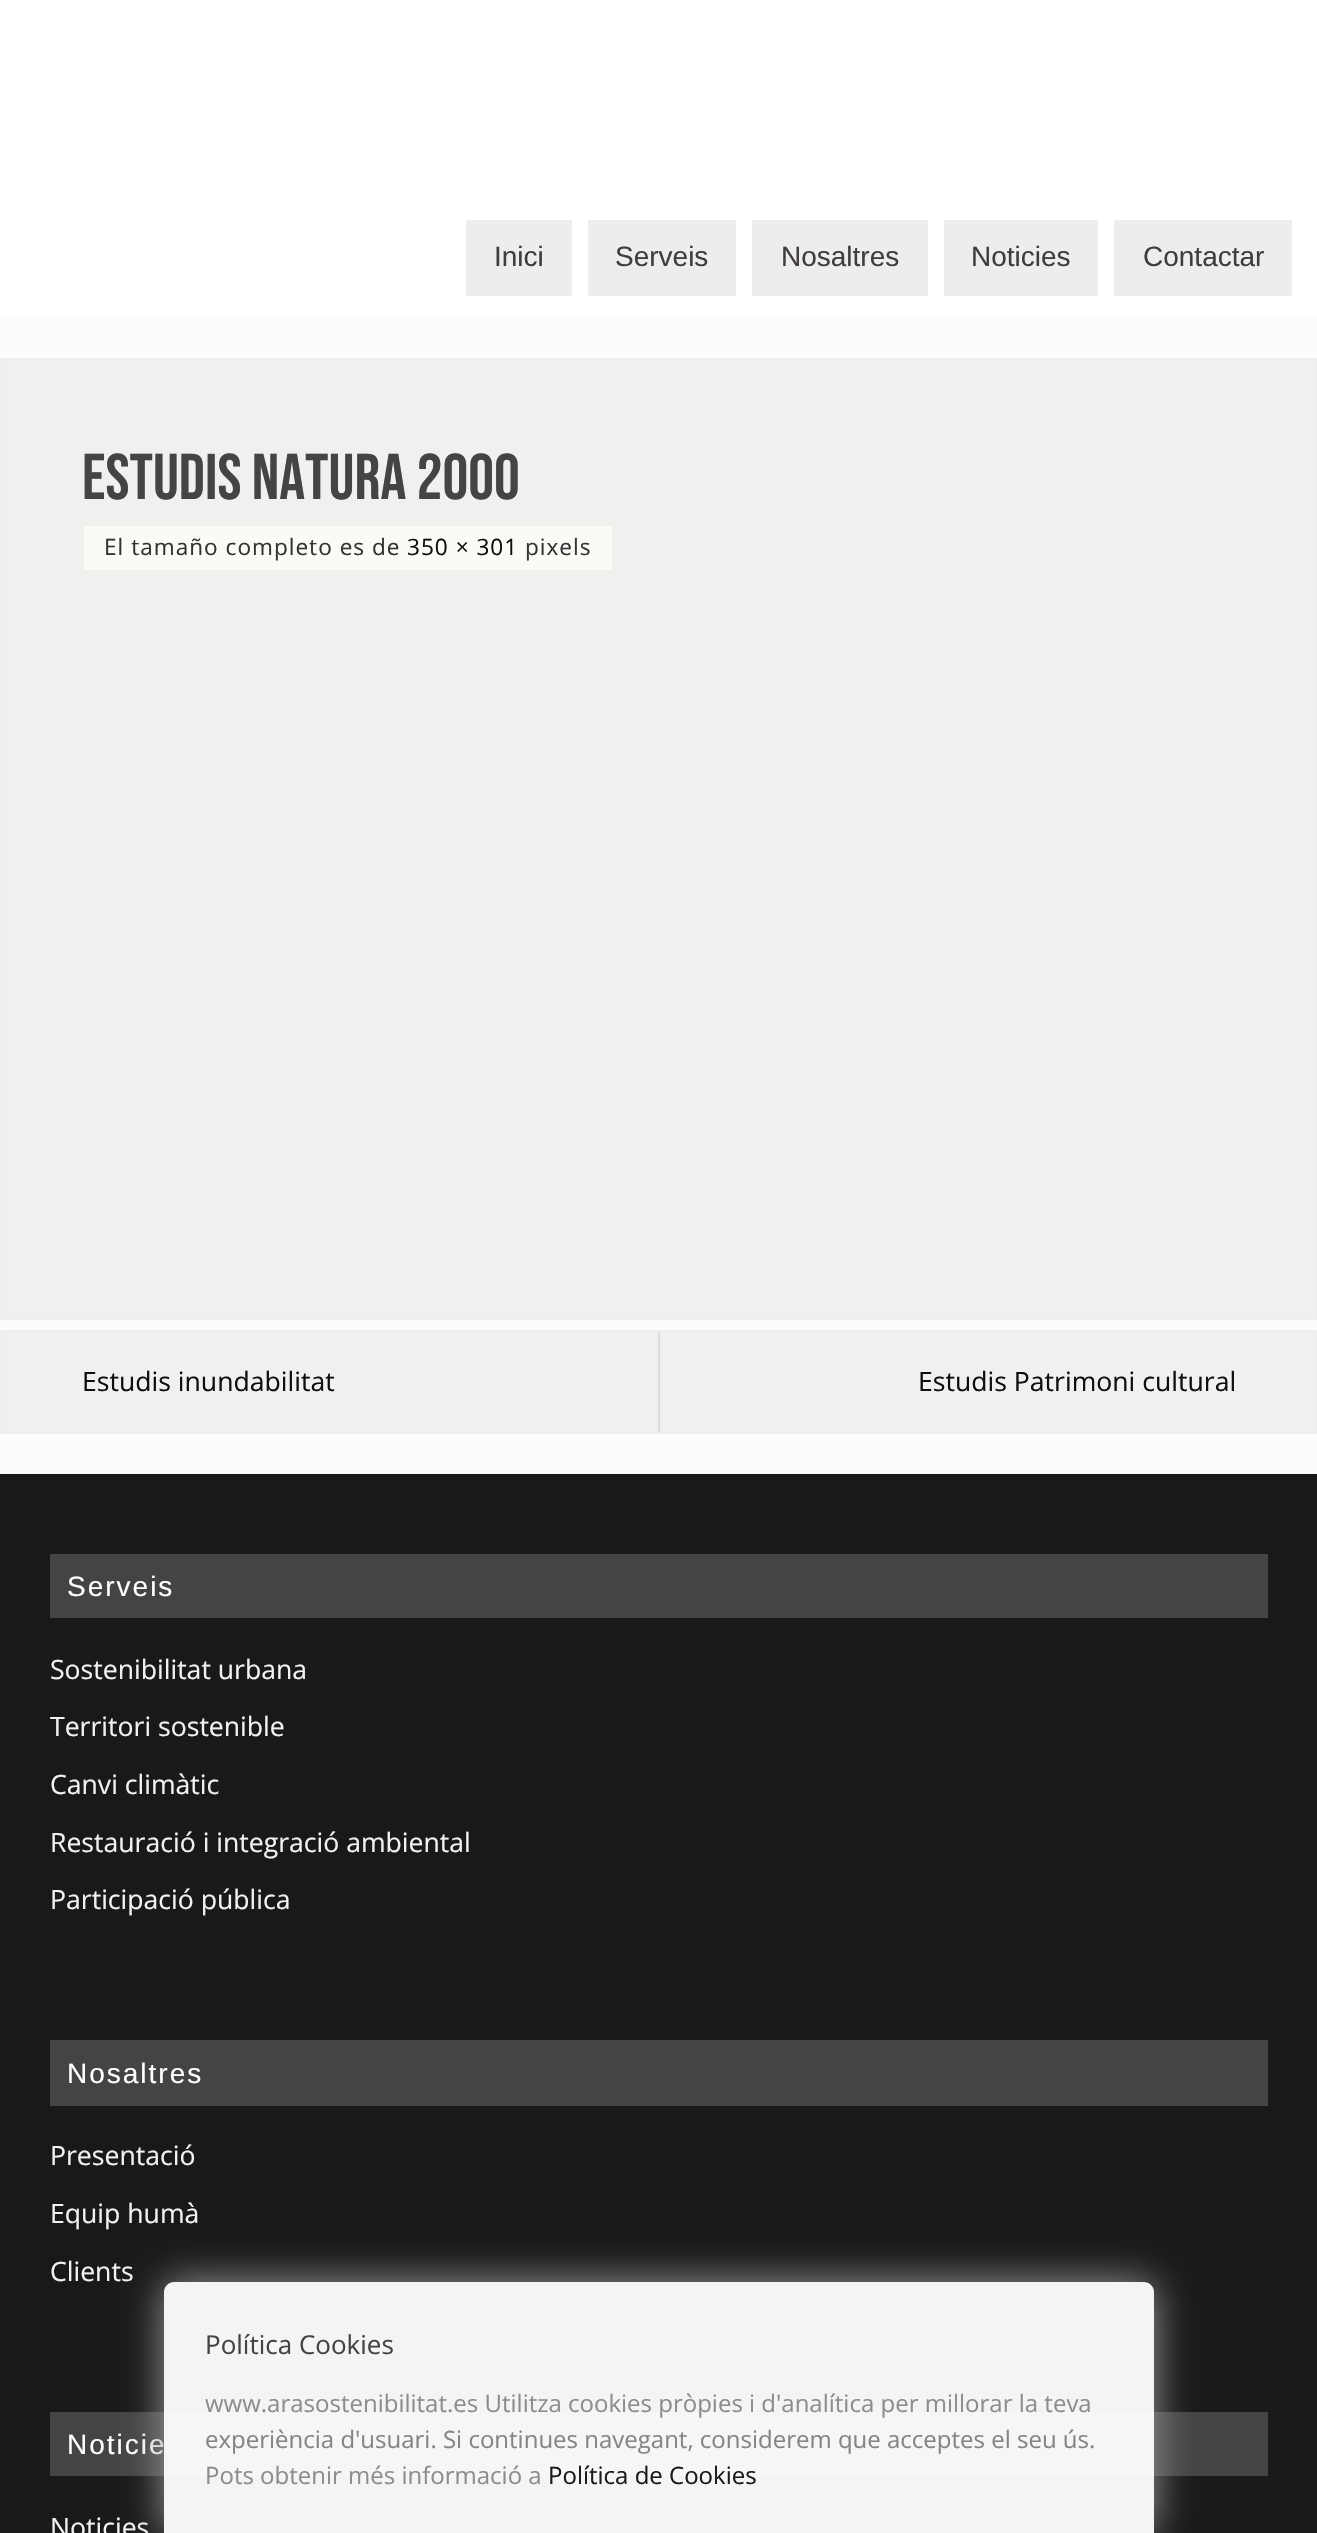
#include "include/core/SkBlurTypes.h"
#include "include/core/SkCanvas.h"
#include "include/core/SkData.h"
#include "include/core/SkFont.h"
#include "include/core/SkFontMgr.h"
#include "include/core/SkImage.h"
#include "include/core/SkMaskFilter.h"
#include "include/core/SkPaint.h"
#include "include/core/SkPathBuilder.h"
#include "include/core/SkTextBlob.h"
#include "include/effects/SkDashPathEffect.h"
#include "include/effects/SkGradientShader.h"
#include "include/utils/SkParsePath.h"

extern sk_sp<SkFontMgr> fontMgr;

void draw(SkCanvas* canvas) {
    SkPaint p;
    p.setAntiAlias(true);
    auto font = [&](const char* family, int weight, float size, bool italic = false) {
        SkFontStyle style(weight, SkFontStyle::kNormal_Width,
            italic ? SkFontStyle::kItalic_Slant : SkFontStyle::kUpright_Slant);
        SkFont result(fontMgr->matchFamilyStyle(family, style), size);
        result.setSubpixel(true);
        return result;
    };
    auto drawTracked = [&](const char* s, float x, float y, const SkFont& font, const SkPaint& ink, float letter, float word) {
        std::vector<SkGlyphID> glyphs(font.countText(s, strlen(s), SkTextEncoding::kUTF8));
        std::vector<float> xs(glyphs.size());
        font.textToGlyphs(s, strlen(s), SkTextEncoding::kUTF8, glyphs);
        font.getXPos(glyphs, xs, x);
        float extra = 0;
        for (size_t i = 0; i < glyphs.size(); i++) {
            xs[i] += extra;
            extra += letter + word * (glyphs[i] == font.unicharToGlyph(' '));
        }
        canvas->drawTextBlob(SkTextBlob::MakeFromPosHGlyphs(glyphs, xs, y, font), 0, 0, ink);
    };
    canvas->clear(0xFFFDFCFC);
    p.setColor(0xFFFFFFFF);
    canvas->drawRect(SkRect::MakeLTRB(0, 0, 1317, 318), p);
    p.setColor(0xFFEDEDED);
    canvas->drawRect(SkRect::MakeLTRB(466, 220, 572, 296), p);
    auto font1 = font("Liberation Sans", 400, 28);
    p.setColor(0xFF423D3D);
    canvas->drawString("Inici", 494, 266, font1, p);
    p.setColor(0xFFEDEDED);
    canvas->drawRect(SkRect::MakeLTRB(588, 220, 736, 296), p);
    p.setColor(0xFF423D3D);
    canvas->drawString("Serveis", 615, 266, font1, p);
    p.setColor(0xFFEDEDED);
    canvas->drawRect(SkRect::MakeLTRB(752, 220, 928, 296), p);
    p.setColor(0xFF423D3D);
    canvas->drawString("Nosaltres", 781, 266, font1, p);
    p.setColor(0xFFEDEDED);
    canvas->drawRect(SkRect::MakeLTRB(944, 220, 1098, 296), p);
    p.setColor(0xFF423D3D);
    canvas->drawString("Noticies", 971, 266, font1, p);
    p.setColor(0xFFEDEDED);
    canvas->drawRect(SkRect::MakeLTRB(1114, 220, 1292, 296), p);
    p.setColor(0xFF423D3D);
    canvas->drawString("Contactar", 1143, 266, font1, p);
    p.setColor(0xFFF0F0EF);
    canvas->drawRect(SkRect::MakeLTRB(1, 359, 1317, 1319), p);
    p.setStyle(SkPaint::kStroke_Style);
    p.setStrokeWidth(2);
    p.setColor(0xFFEEEEEE);
    canvas->drawRect(SkRect::MakeLTRB(1, 359, 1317, 1319), p);
    auto font2 = font("Bebas Neue", 400, 64.5f);
    p.setStyle(SkPaint::kFill_Style);
    p.setColor(0xFF444444);
    canvas->drawString("Estudis natura 2000", 82, 499, font2, p);
    p.setColor(0xFFFAFAF7);
    canvas->drawRect(SkRect::MakeLTRB(84, 526, 612, 570), p);
    auto font3 = font("Open Sans", 400, 22.6f);
    p.setColor(0xFF333333);
    drawTracked("El tamaño completo es de", 104, 555, font3, p, 1, 0);
    p.setColor(0xFF100F0E);
    drawTracked("350 × 301", 407, 555, font3, p, 1, 0);
    p.setColor(0xFF333333);
    drawTracked("pixels", 525, 555, font3, p, 1, 0);
    p.setColor(0xFFF0F0EF);
    canvas->drawRect(SkRect::MakeLTRB(1, 1331, 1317, 1433), p);
    p.setStyle(SkPaint::kStroke_Style);
    p.setColor(0xFFEEEEEE);
    canvas->drawRect(SkRect::MakeLTRB(1, 1331, 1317, 1433), p);
    p.setStyle(SkPaint::kFill_Style);
    p.setColor(0xFFDDDDDC);
    canvas->drawRect(SkRect::MakeLTRB(658, 1332, 660, 1432), p);
    auto font4 = font("Open Sans", 400, 26.6f);
    p.setColor(0xFF100F0E);
    canvas->drawString("Estudis inundabilitat", 82, 1391, font4, p);
    canvas->drawString("Estudis Patrimoni cultural", 918, 1391, font4, p);
    p.setColor(0xFF1A1917);
    canvas->drawRect(SkRect::MakeLTRB(0, 1474, 1317, 2533), p);
    p.setColor(0xFF444444);
    canvas->drawRect(SkRect::MakeLTRB(50, 1554, 1268, 1618), p);
    p.setColor(0xFFFFFFFF);
    drawTracked("Serveis", 67, 1596, font1, p, 2, 0);
    p.setColor(0xFFF3F2F2);
    {
        const struct { const char* s; float x, y; } items[] = {
            {"Sostenibilitat urbana", 50, 1679},
            {"Territori sostenible", 50, 1736},
            {"Canvi climàtic", 50, 1794},
            {"Restauració i integració ambiental", 50, 1852},
            {"Participació pública", 50, 1909},
        };
        for (auto [s, x, y] : items) {
            canvas->drawString(s, x, y, font4, p);
        }
    }
    p.setColor(0xFF444444);
    canvas->drawRect(SkRect::MakeLTRB(50, 2040, 1268, 2106), p);
    p.setColor(0xFFFFFFFF);
    drawTracked("Nosaltres", 67, 2083, font1, p, 2, 0);
    p.setColor(0xFFF3F2F2);
    {
        const struct { const char* s; float x, y; } items[] = {
            {"Presentació", 50, 2165},
            {"Equip humà", 50, 2223},
            {"Clients", 50, 2281},
        };
        for (auto [s, x, y] : items) {
            canvas->drawString(s, x, y, font4, p);
        }
    }
    p.setColor(0xFF444444);
    canvas->drawRect(SkRect::MakeLTRB(50, 2412, 1268, 2476), p);
    p.setColor(0xFFFFFFFF);
    drawTracked("Noticie", 67, 2454, font1, p, 2, 0);
    p.setColor(0xFFF3F2F2);
    canvas->drawString("Noticies", 50, 2537, font4, p);
    canvas->save();
    canvas->clipPath(SkPathBuilder(SkPathFillType::kEvenOdd).moveTo(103, 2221).lineTo(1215, 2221).lineTo(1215, 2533).lineTo(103, 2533).close().moveTo(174, 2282).lineTo(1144, 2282).cubicTo(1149.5f, 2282, 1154, 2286.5f, 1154, 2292).lineTo(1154, 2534).lineTo(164, 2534).lineTo(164, 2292).cubicTo(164, 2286.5f, 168.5f, 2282, 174, 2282).close().detach(), true);
    p.setColor(0xF2A1A1A1);
    p.setMaskFilter(SkMaskFilter::MakeBlur(kNormal_SkBlurStyle, 20));
    canvas->drawRoundRect(SkRect::MakeLTRB(164, 2282, 1154, 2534), 10, 10, p);
    p.setMaskFilter(nullptr);
    canvas->restore();
    p.setColor(0xF2FFFFFF);
    canvas->drawPath(SkPathBuilder().moveTo(174, 2282).lineTo(1144, 2282).cubicTo(1149.5f, 2282, 1154, 2286.5f, 1154, 2292).lineTo(1154, 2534).lineTo(164, 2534).lineTo(164, 2292).cubicTo(164, 2286.5f, 168.5f, 2282, 174, 2282).close().detach(), p);
    auto font5 = font("Open Sans", 400, 26);
    p.setColor(0xFF444444);
    canvas->drawString("Política Cookies", 205, 2354, font5, p);
    auto font6 = font("Open Sans", 400, 24);
    p.setColor(0xFF8D8D8D);
    canvas->drawString("www.arasostenibilitat.es Utilitza cookies pròpies i d'analítica per millorar la teva", 205, 2412, font6, p);
    p.setColor(0xFF858585);
    canvas->drawString("experiència d'usuari. Si continues navegant, considerem que acceptes el seu ús.", 205, 2448, font6, p);
    p.setColor(0xFF8D8D8D);
    canvas->drawString("Pots obtenir més informació a", 205, 2484, font6, p);
    p.setColor(0xFF1B1A1A);
    canvas->drawString("Política de Cookies", 548, 2484, font6, p);
}
